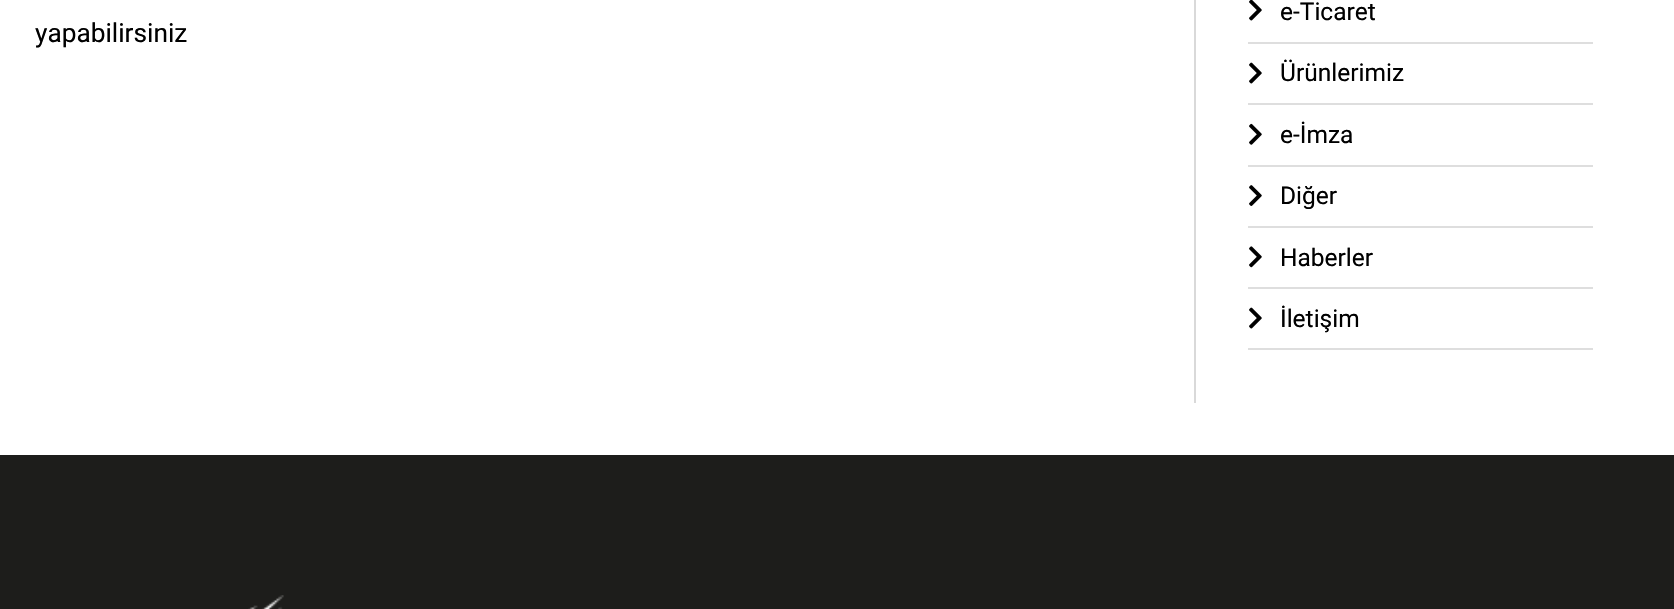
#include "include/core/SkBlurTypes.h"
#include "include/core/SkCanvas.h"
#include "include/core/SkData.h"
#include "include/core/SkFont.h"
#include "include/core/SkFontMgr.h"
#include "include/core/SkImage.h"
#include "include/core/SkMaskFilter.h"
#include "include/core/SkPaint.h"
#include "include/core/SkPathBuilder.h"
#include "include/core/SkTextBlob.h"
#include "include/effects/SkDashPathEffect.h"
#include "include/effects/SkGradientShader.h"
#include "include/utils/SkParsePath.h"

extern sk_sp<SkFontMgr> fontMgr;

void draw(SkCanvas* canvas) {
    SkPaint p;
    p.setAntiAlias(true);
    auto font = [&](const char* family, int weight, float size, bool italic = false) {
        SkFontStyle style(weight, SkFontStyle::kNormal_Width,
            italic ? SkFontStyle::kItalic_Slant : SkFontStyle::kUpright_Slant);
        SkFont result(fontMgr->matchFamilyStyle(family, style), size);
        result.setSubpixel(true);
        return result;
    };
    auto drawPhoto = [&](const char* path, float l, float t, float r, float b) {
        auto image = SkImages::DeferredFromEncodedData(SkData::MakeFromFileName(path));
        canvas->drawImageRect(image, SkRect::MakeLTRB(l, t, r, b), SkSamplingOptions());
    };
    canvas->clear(0xFFFFFFFF);
    auto font1 = font("Roboto", 400, 26.25f);
    p.setColor(0xFF000000);
    canvas->drawString("yapabilirsiniz", 35, 42, font1, p);
    p.setColor(0xFFD9D9D9);
    canvas->drawRect(SkRect::MakeLTRB(1194, 0, 1196, 403), p);
    p.setColor(0xFFDEDEDE);
    canvas->drawRect(SkRect::MakeLTRB(1248, 42, 1593, 44), p);
    drawPhoto("media/1.png", 1249, 0, 1262, 21);
    auto font2 = font("Roboto", 400, 24.5f);
    p.setColor(0xFF000000);
    canvas->drawString("e-Ticaret", 1280, 20, font2, p);
    p.setColor(0xFFDEDEDE);
    canvas->drawRect(SkRect::MakeLTRB(1248, 103, 1593, 105), p);
    drawPhoto("media/2.png", 1249, 62, 1262, 84);
    p.setColor(0xFF000000);
    canvas->drawString("Ürünlerimiz", 1280, 81, font2, p);
    p.setColor(0xFFDEDEDE);
    canvas->drawRect(SkRect::MakeLTRB(1248, 165, 1593, 167), p);
    drawPhoto("media/3.png", 1249, 123, 1262, 145);
    p.setColor(0xFF000000);
    canvas->drawString("e-İmza", 1280, 143, font2, p);
    p.setColor(0xFFDEDEDE);
    canvas->drawRect(SkRect::MakeLTRB(1248, 226, 1593, 228), p);
    drawPhoto("media/4.png", 1249, 185, 1262, 206);
    p.setColor(0xFF000000);
    canvas->drawString("Diğer", 1280, 204, font2, p);
    p.setColor(0xFFDEDEDE);
    canvas->drawRect(SkRect::MakeLTRB(1248, 287, 1593, 289), p);
    drawPhoto("media/5.png", 1249, 246, 1262, 268);
    p.setColor(0xFF000000);
    canvas->drawString("Haberler", 1280, 266, font2, p);
    p.setColor(0xFFDEDEDE);
    canvas->drawRect(SkRect::MakeLTRB(1248, 348, 1593, 350), p);
    drawPhoto("media/2.png", 1249, 307, 1262, 329);
    p.setColor(0xFF000000);
    canvas->drawString("İletişim", 1280, 327, font2, p);
    p.setColor(0xFF1D1D1B);
    canvas->drawRect(SkRect::MakeLTRB(0, 455, 1674, 609), p);
    drawPhoto("media/6.png", 248, 595, 284, 609);
}
